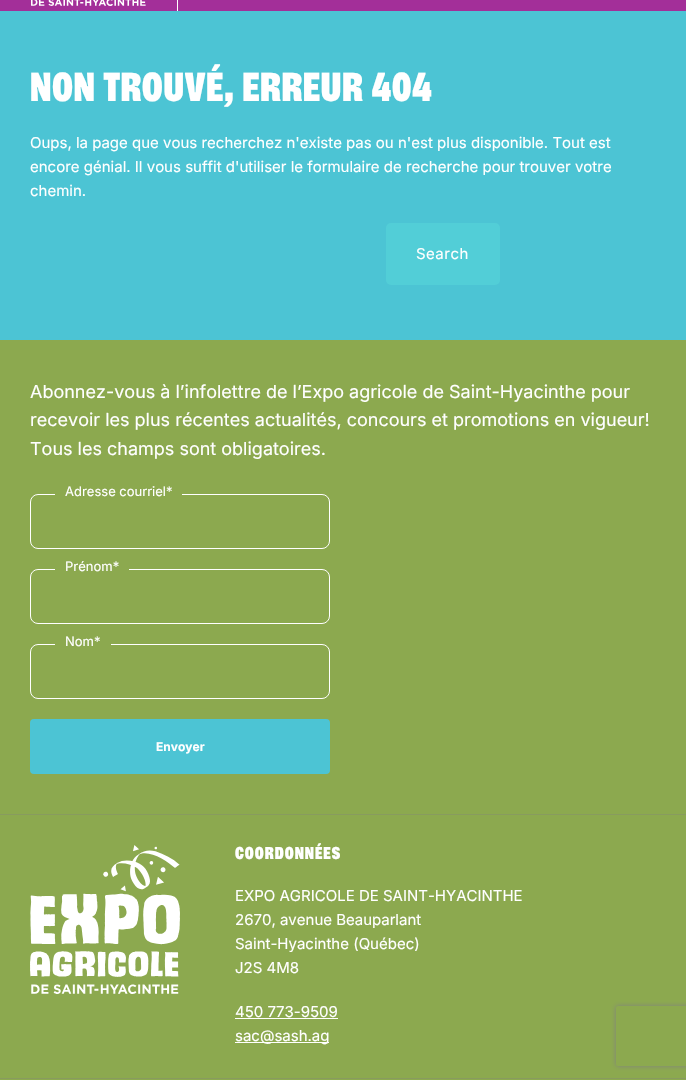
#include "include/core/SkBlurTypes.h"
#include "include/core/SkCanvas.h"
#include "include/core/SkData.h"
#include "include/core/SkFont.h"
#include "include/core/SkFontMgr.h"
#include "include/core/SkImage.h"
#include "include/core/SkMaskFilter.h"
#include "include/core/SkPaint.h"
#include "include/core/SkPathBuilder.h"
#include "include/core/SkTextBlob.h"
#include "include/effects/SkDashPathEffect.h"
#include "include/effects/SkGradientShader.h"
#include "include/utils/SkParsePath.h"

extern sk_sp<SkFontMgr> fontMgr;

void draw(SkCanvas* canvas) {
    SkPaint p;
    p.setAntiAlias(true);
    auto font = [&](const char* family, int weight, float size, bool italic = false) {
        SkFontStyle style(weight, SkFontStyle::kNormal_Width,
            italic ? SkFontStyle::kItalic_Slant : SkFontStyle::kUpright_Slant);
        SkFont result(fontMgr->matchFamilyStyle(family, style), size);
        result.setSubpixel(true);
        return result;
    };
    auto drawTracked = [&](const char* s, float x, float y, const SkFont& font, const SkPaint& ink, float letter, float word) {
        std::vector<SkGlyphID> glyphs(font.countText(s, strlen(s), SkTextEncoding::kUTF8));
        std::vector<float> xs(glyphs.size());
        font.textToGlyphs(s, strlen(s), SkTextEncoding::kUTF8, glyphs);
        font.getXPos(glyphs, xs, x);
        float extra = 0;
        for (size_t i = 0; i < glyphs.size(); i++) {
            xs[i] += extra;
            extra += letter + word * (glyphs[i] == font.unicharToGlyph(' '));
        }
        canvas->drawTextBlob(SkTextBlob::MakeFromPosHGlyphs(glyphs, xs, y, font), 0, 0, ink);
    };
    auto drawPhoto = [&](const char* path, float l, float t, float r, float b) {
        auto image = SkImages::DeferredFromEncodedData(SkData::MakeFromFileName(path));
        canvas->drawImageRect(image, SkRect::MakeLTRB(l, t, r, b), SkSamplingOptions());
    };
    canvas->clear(0xFF4CC4D4);
    p.setColor(0xFFA32F99);
    canvas->drawRect(SkRect::MakeLTRB(0, 0, 686, 11), p);
    p.setColor(0xFFFFFFFF);
    canvas->drawRect(SkRect::MakeLTRB(177, 0, 178, 11), p);
    drawPhoto("media/1.png", 31, 0, 146, 6);
    auto font1 = font("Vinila", 900, 41);
    drawTracked("NON TROUVÉ, ERREUR 404", 30, 101, font1, p, 0.5f, 0);
    auto font2 = font("Inter", 400, 15);
    {
        const struct { const char* s; float x, y; } items[] = {
            {"Oups, la page que vous recherchez n'existe pas ou n'est plus disponible. Tout est", 30, 148},
            {"encore génial. Il vous suffit d'utiliser le formulaire de recherche pour trouver votre", 30, 172},
            {"chemin.", 30, 196},
        };
        for (auto [s, x, y] : items) {
            canvas->drawString(s, x, y, font2, p);
        }
    }
    p.setColor(0xFF52CED7);
    canvas->drawRoundRect(SkRect::MakeLTRB(386, 223, 500, 285), 5, 5, p);
    p.setColor(0xFFFFFFFF);
    drawTracked("Search", 416, 259, font2, p, 0.5f, 0);
    p.setColor(0xFF8CA94F);
    canvas->drawRect(SkRect::MakeLTRB(0, 340, 686, 1080), p);
    auto font3 = font("Inter", 400, 18);
    p.setColor(0xFFFFFFFF);
    {
        const struct { const char* s; float x, y; } items[] = {
            {"Abonnez-vous à l’infolettre de l’Expo agricole de Saint-Hyacinthe pour", 30, 398},
            {"recevoir les plus récentes actualités, concours et promotions en vigueur!", 30, 426},
            {"Tous les champs sont obligatoires.", 30, 455},
        };
        for (auto [s, x, y] : items) {
            canvas->drawString(s, x, y, font3, p);
        }
    }
    p.setStyle(SkPaint::kStroke_Style);
    p.setStrokeWidth(1);
    canvas->drawRoundRect(SkRect::MakeLTRB(30.5f, 494.5f, 329.5f, 548.5f), 7.5f, 7.5f, p);
    p.setStyle(SkPaint::kFill_Style);
    p.setColor(0xFF8CA94F);
    canvas->drawRect(SkRect::MakeLTRB(55, 494, 182, 495), p);
    auto font4 = font("Inter", 400, 13);
    p.setColor(0xFFFFFFFF);
    canvas->drawString("Adresse courriel*", 65, 496, font4, p);
    p.setStyle(SkPaint::kStroke_Style);
    canvas->drawRoundRect(SkRect::MakeLTRB(30.5f, 569.5f, 329.5f, 623.5f), 7.5f, 7.5f, p);
    p.setStyle(SkPaint::kFill_Style);
    p.setColor(0xFF8CA94F);
    canvas->drawRect(SkRect::MakeLTRB(55, 569, 129, 570), p);
    p.setColor(0xFFFFFFFF);
    canvas->drawString("Prénom*", 65, 571, font4, p);
    p.setStyle(SkPaint::kStroke_Style);
    canvas->drawRoundRect(SkRect::MakeLTRB(30.5f, 644.5f, 329.5f, 698.5f), 7.5f, 7.5f, p);
    p.setStyle(SkPaint::kFill_Style);
    p.setColor(0xFF8CA94F);
    canvas->drawRect(SkRect::MakeLTRB(55, 644, 111, 645), p);
    p.setColor(0xFFFFFFFF);
    canvas->drawString("Nom*", 65, 646, font4, p);
    p.setColor(0xFF4CC4D4);
    canvas->drawRoundRect(SkRect::MakeLTRB(30, 719, 330, 774), 4, 4, p);
    auto font5 = font("Inter", 700, 12);
    p.setColor(0xFFFFFFFF);
    canvas->drawString("Envoyer", 156, 751, font5, p);
    p.setColor(0xFF889B5F);
    canvas->drawRect(SkRect::MakeLTRB(0, 814, 686, 815), p);
    canvas->drawRect(SkRect::MakeLTRB(0, 1078, 686, 1079), p);
    drawPhoto("media/2.png", 30, 845, 180, 994);
    auto font6 = font("Vinila", 900, 17.5f);
    p.setColor(0xFFFFFFFF);
    drawTracked("COORDONNÉES", 235, 859, font6, p, 1, 0);
    {
        const struct { const char* s; float x, y; } items[] = {
            {"EXPO AGRICOLE DE SAINT-HYACINTHE", 235, 901},
            {"2670, avenue Beauparlant", 235, 925},
            {"Saint-Hyacinthe (Québec)", 235, 949},
            {"J2S 4M8", 235, 973},
            {"450 773-9509", 235, 1017},
        };
        for (auto [s, x, y] : items) {
            canvas->drawString(s, x, y, font2, p);
        }
    }
    canvas->drawRect(SkRect::MakeLTRB(235, 1018, 338, 1019), p);
    canvas->drawRect(SkRect::MakeLTRB(235, 1042, 329, 1043), p);
    canvas->drawString("sac@sash.ag", 235, 1041, font2, p);
    canvas->save();
    canvas->clipPath(SkPathBuilder(SkPathFillType::kEvenOdd).moveTo(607, 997).lineTo(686, 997).lineTo(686, 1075).lineTo(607, 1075).close().moveTo(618, 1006).lineTo(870, 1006).cubicTo(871, 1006, 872, 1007, 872, 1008).lineTo(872, 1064).cubicTo(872, 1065, 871, 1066, 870, 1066).lineTo(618, 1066).cubicTo(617, 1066, 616, 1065, 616, 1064).lineTo(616, 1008).cubicTo(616, 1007, 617, 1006, 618, 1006).close().detach(), true);
    p.setColor(0xFF808080);
    p.setMaskFilter(SkMaskFilter::MakeBlur(kNormal_SkBlurStyle, 2.5f));
    canvas->drawRoundRect(SkRect::MakeLTRB(616, 1006, 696, 1066), 2, 2, p);
    p.setMaskFilter(nullptr);
    canvas->restore();
}
